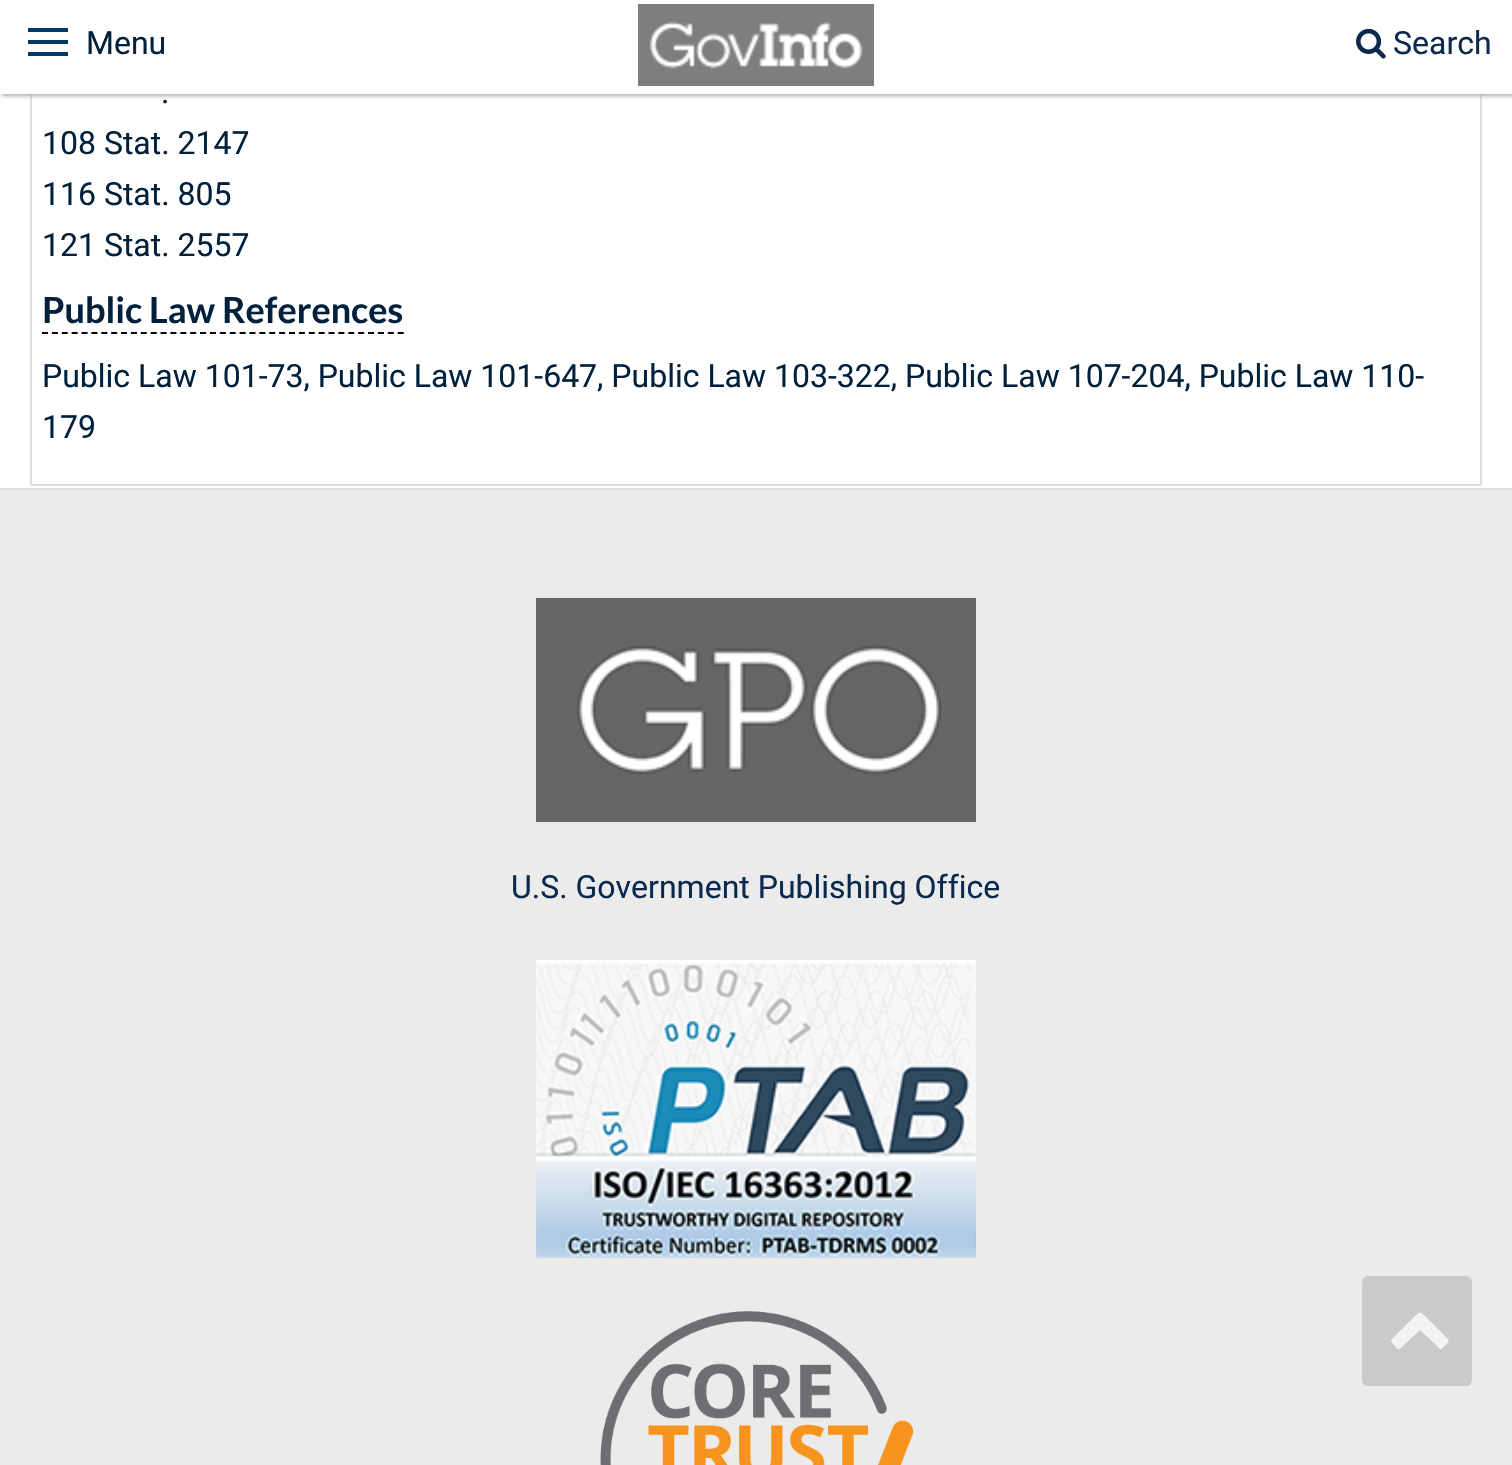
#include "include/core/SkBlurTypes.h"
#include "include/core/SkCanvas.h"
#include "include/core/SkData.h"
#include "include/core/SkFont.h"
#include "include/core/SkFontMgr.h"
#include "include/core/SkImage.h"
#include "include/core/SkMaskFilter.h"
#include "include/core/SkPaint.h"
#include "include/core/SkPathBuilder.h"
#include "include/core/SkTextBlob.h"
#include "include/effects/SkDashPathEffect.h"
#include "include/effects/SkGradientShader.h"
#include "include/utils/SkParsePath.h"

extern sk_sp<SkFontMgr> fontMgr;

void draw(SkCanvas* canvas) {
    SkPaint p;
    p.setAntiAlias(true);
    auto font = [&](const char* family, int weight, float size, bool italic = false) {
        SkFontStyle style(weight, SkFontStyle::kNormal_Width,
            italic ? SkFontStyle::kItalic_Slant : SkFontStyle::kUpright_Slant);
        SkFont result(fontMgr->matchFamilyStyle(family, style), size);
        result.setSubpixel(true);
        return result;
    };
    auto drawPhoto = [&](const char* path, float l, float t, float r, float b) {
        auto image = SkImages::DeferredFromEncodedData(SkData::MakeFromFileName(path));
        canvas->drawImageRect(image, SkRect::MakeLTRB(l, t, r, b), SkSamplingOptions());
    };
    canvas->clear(0xFFFFFFFF);
    {
        const struct { float l, t, r, b; SkColor color; } items[] = {
            {1480, 94, 1482, 486, 0xFFDDDDDD},
            {30, 484, 1482, 486, 0xFFDDDDDD},
            {30, 94, 32, 486, 0xFFDDDDDD},
        };
        for (auto [l, t, r, b, color] : items) {
            p.setColor(color);
            canvas->drawRect(SkRect::MakeLTRB(l, t, r, b), p);
        }
    }
    p.setColor(0xFFACACAE);
    p.setMaskFilter(SkMaskFilter::MakeBlur(kNormal_SkBlurStyle, 2));
    canvas->drawRect(SkRect::MakeLTRB(2, 0, 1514, 96), p);
    p.setMaskFilter(nullptr);
    {
        const struct { float l, t, r, b; SkColor color; } items[] = {
            {0, 0, 1512, 94, 0xFFFFFFFF},
            {28, 28, 68, 32, 0xFF003866},
            {28, 40, 68, 44, 0xFF003866},
            {28, 52, 68, 56, 0xFF003866},
        };
        for (auto [l, t, r, b, color] : items) {
            p.setColor(color);
            canvas->drawRect(SkRect::MakeLTRB(l, t, r, b), p);
        }
    }
    auto font1 = font("Roboto", 400, 32);
    p.setColor(0xFF01203B);
    canvas->drawString("Menu", 86, 54, font1, p);
    drawPhoto("media/1.png", 638, 4, 874, 86);
    drawPhoto("media/2.png", 1356, 28, 1386, 59);
    p.setColor(0xFF0B294D);
    canvas->drawString("Search", 1393, 54, font1, p);
    p.setColor(0xFF01203B);
    {
        const struct { const char* s; float x, y; } items[] = {
            {".", 161, 103},
            {"108 Stat. 2147", 42, 154},
            {"116 Stat. 805", 42, 205},
            {"121 Stat. 2557", 42, 256},
        };
        for (auto [s, x, y] : items) {
            canvas->drawString(s, x, y, font1, p);
        }
    }
    auto font2 = font("Lato", 700, 36);
    canvas->drawString("Public Law References", 42, 323, font2, p);
    p.setStyle(SkPaint::kStroke_Style);
    p.setStrokeWidth(2);
    p.setColor(0xFF000000);
    p.setPathEffect(SkDashPathEffect::Make({{6, 3.88f}}, 0));
    canvas->drawPath(SkPathBuilder().moveTo(42, 333).lineTo(404, 333).detach(), p);
    p.setPathEffect(nullptr);
    p.setStyle(SkPaint::kFill_Style);
    p.setColor(0xFF01203B);
    canvas->drawString("Public Law 101-73, Public Law 101-647, Public Law 103-322, Public Law 107-204, Public Law 110-", 42, 387, font1, p);
    canvas->drawString("179", 42, 438, font1, p);
    p.setColor(0xFFEBEBEB);
    canvas->drawRect(SkRect::MakeLTRB(0, 490, 1512, 1465), p);
    p.setColor(0xFFDEDFE1);
    canvas->drawRect(SkRect::MakeLTRB(0, 488, 1512, 490), p);
    drawPhoto("media/3.png", 536, 598, 976, 822);
    p.setColor(0xFF0B294D);
    canvas->drawString("U.S. Government Publishing Office", 511, 898, font1, p);
    drawPhoto("media/4.png", 536, 960, 976, 1258);
    drawPhoto("media/5.png", 600, 1311, 914, 1465);
    p.setColor(0xFFCACACA);
    canvas->drawRoundRect(SkRect::MakeLTRB(1362, 1276, 1472, 1386), 6, 6, p);
    p.setColor(0xFFF3F3F3);
    canvas->drawPath(SkPathBuilder().moveTo(1448, 1343).cubicTo(1441, 1349, 1442, 1352, 1436, 1345).lineTo(1420, 1330).lineTo(1404, 1345).cubicTo(1398, 1351, 1399, 1350, 1393, 1344).cubicTo(1389, 1340, 1392, 1339, 1396, 1335).lineTo(1414, 1317).cubicTo(1421, 1311, 1419, 1311, 1426, 1317).lineTo(1444, 1335).cubicTo(1444, 1336, 1451, 1340, 1448, 1343).close().detach(), p);
}
